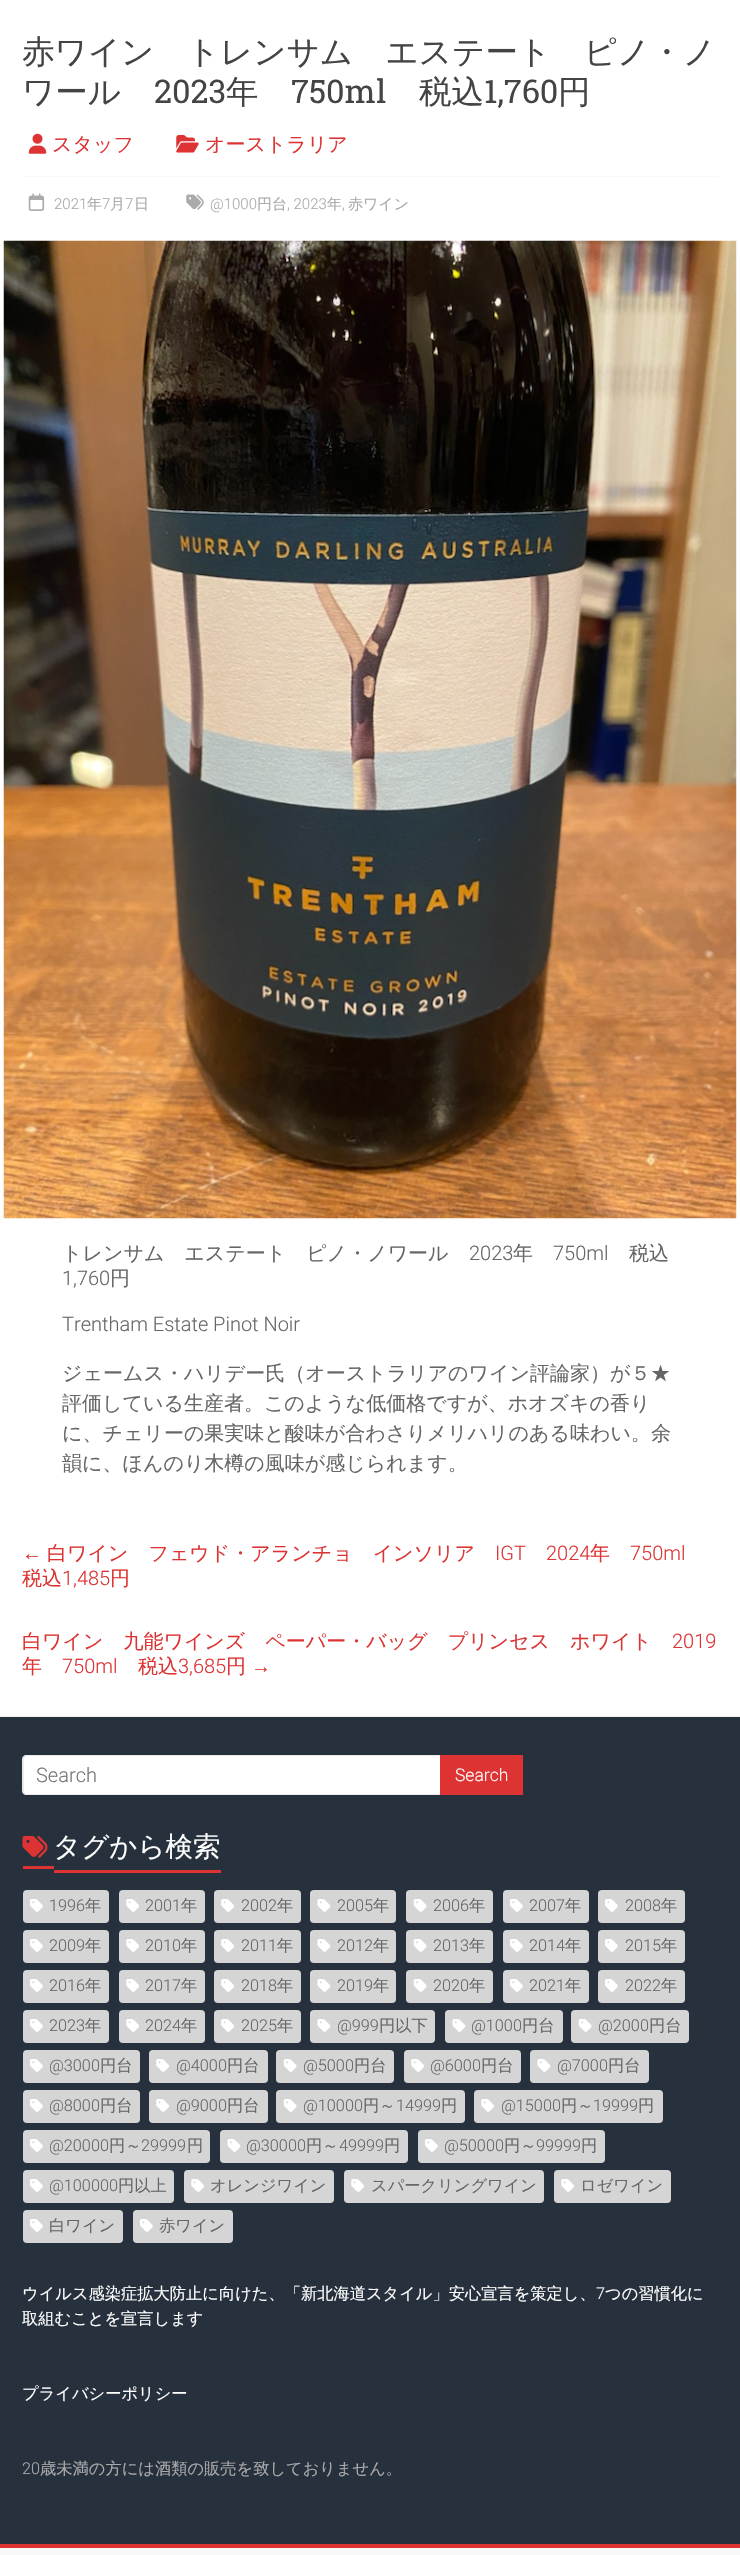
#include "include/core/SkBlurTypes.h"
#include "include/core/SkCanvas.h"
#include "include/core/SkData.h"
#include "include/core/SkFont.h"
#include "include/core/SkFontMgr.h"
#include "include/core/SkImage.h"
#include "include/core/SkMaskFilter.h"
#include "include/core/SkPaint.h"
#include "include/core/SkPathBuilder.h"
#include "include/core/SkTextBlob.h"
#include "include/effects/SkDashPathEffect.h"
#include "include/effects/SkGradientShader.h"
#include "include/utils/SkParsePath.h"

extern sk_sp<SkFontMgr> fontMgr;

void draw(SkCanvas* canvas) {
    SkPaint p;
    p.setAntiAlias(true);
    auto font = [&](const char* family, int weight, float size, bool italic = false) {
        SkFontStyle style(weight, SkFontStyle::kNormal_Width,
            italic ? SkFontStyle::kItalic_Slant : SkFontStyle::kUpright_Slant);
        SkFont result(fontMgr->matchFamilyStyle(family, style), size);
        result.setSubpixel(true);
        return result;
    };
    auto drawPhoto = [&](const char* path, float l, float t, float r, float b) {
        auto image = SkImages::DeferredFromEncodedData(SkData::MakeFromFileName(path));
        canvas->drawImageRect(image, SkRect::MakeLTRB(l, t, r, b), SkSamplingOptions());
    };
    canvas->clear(0xFFFFFFFF);
    auto font1 = font("WenQuanYi Zen Hei", 500, 32.5f);
    p.setColor(0xFF444444);
    canvas->drawString("赤ワイン　トレンサム　エステート　ピノ・ノ", 22, 63, font1, p);
    canvas->drawString("ワール", 22, 103, font1, p);
    auto font2 = font("Roboto Slab", 400, 32.5f);
    canvas->drawString("2023", 154, 103, font2, p);
    canvas->drawString("年", 226, 103, font1, p);
    canvas->drawString("750ml", 291, 103, font2, p);
    canvas->drawString("税込", 419, 103, font1, p);
    canvas->drawString("1,760", 484, 103, font2, p);
    canvas->drawString("円", 558, 103, font1, p);
    drawPhoto("media/1.png", 28, 133, 47, 154);
    auto font3 = font("WenQuanYi Zen Hei", 500, 20);
    p.setColor(0xFFDD3333);
    canvas->drawString("スタッフ", 52, 151, font3, p);
    drawPhoto("media/2.png", 176, 135, 199, 153);
    canvas->drawString("オーストラリア", 205, 151, font3, p);
    p.setColor(0xFFF8F8F8);
    canvas->drawRect(SkRect::MakeLTRB(23, 176, 718, 177), p);
    drawPhoto("media/3.png", 28, 193, 45, 211);
    auto font4 = font("Roboto", 300, 15);
    p.setColor(0xFFAAAAAA);
    canvas->drawString("2021", 54, 209, font4, p);
    auto font5 = font("WenQuanYi Zen Hei", 500, 15);
    canvas->drawString("年", 87, 209, font5, p);
    canvas->drawString("7", 102, 209, font4, p);
    canvas->drawString("月", 110, 209, font5, p);
    canvas->drawString("7", 125, 209, font4, p);
    canvas->drawString("日", 134, 209, font5, p);
    drawPhoto("media/4.png", 186, 194, 204, 210);
    canvas->drawString("@1000", 210, 209, font4, p);
    canvas->drawString("円台", 257, 209, font5, p);
    canvas->drawString(", 2023", 287, 209, font4, p);
    canvas->drawString("年", 327, 209, font5, p);
    canvas->drawString(",", 342, 209, font4, p);
    canvas->drawString("赤ワイン", 348, 209, font5, p);
    drawPhoto("media/5.png", 3, 240, 737, 1219);
    p.setColor(0xFF666666);
    canvas->drawString("トレンサム　エステート　ピノ・ノワール", 62, 1260, font3, p);
    auto font6 = font("Roboto", 300, 20);
    canvas->drawString("2023", 469, 1260, font6, p);
    canvas->drawString("年", 513, 1260, font3, p);
    canvas->drawString("750ml", 553, 1260, font6, p);
    canvas->drawString("税込", 629, 1260, font3, p);
    canvas->drawString("1,760", 62, 1285, font6, p);
    canvas->drawString("円", 110, 1285, font3, p);
    canvas->drawString("Trentham Estate Pinot Noir", 62, 1331, font6, p);
    {
        const struct { const char* s; float x, y; } items[] = {
            {"ジェームス・ハリデー氏（オーストラリアのワイン評論家）が５★", 62, 1380},
            {"評価している生産者。このような低価格ですが、ホオズキの香り", 62, 1410},
            {"に、チェリーの果実味と酸味が合わさりメリハリのある味わい。余", 62, 1440},
            {"韻に、ほんのり木樽の風味が感じられます。", 62, 1470},
        };
        for (auto [s, x, y] : items) {
            canvas->drawString(s, x, y, font3, p);
        }
    }
    auto font7 = font("Liberation Sans", 400, 20);
    p.setColor(0xFFDD3333);
    canvas->drawString("←", 22, 1560, font7, p);
    canvas->drawString("白ワイン　フェウド・アランチョ　インソリア", 47, 1560, font3, p);
    canvas->drawString("IGT", 495, 1560, font6, p);
    canvas->drawString("2024", 546, 1560, font6, p);
    canvas->drawString("年", 590, 1560, font3, p);
    canvas->drawString("750ml", 630, 1560, font6, p);
    canvas->drawString("税込", 22, 1585, font3, p);
    canvas->drawString("1,485", 62, 1585, font6, p);
    canvas->drawString("円", 110, 1585, font3, p);
    canvas->drawString("白ワイン　九能ワインズ　ペーパー・バッグ　プリンセス　ホワイト", 22, 1648, font3, p);
    canvas->drawString("2019", 672, 1648, font6, p);
    canvas->drawString("年", 22, 1673, font3, p);
    canvas->drawString("750ml", 62, 1673, font6, p);
    canvas->drawString("税込", 138, 1673, font3, p);
    canvas->drawString("3,685", 178, 1673, font6, p);
    canvas->drawString("円", 226, 1673, font3, p);
    canvas->drawString("→", 251, 1673, font7, p);
    p.setColor(0xFF27313D);
    canvas->drawRect(SkRect::MakeLTRB(0, 1717, 740, 2544), p);
    p.setColor(0xFFF2F2F2);
    canvas->drawRect(SkRect::MakeLTRB(0, 1716, 740, 1717), p);
    p.setColor(0xFFFFFFFF);
    canvas->drawPath(SkPathBuilder().moveTo(27, 1755).lineTo(440, 1755).lineTo(440, 1795).lineTo(27, 1795).cubicTo(25, 1795, 23, 1793, 23, 1791).lineTo(23, 1759).cubicTo(23, 1757, 25, 1755, 27, 1755).close().detach(), p);
    p.setColor(0xFFEAEAEA);
    canvas->drawPath(SkPathBuilder(SkPathFillType::kEvenOdd).moveTo(26, 1755).lineTo(440, 1755).lineTo(440, 1795).lineTo(26, 1795).cubicTo(24, 1795, 22, 1793, 22, 1791).lineTo(22, 1759).cubicTo(22, 1757, 24, 1755, 26, 1755).close().moveTo(26, 1756).lineTo(440, 1756).lineTo(440, 1794).lineTo(26, 1794).cubicTo(25, 1794, 24, 1793, 24, 1791).lineTo(24, 1759).cubicTo(24, 1757, 25, 1756, 26, 1756).close().detach(), p);
    p.setColor(0xFF757575);
    canvas->drawString("Search", 36, 1782, font6, p);
    p.setColor(0xFFDD3333);
    canvas->drawRect(SkRect::MakeLTRB(440, 1755, 523, 1795), p);
    auto font8 = font("Roboto", 300, 17.5f);
    p.setColor(0xFFFFFFFF);
    canvas->drawString("Search", 455, 1781, font8, p);
    drawPhoto("media/6.png", 22, 1835, 48, 1858);
    auto font9 = font("WenQuanYi Zen Hei", 500, 27.5f);
    canvas->drawString("タグから検索", 53, 1856, font9, p);
    p.setColor(0xFFDD3333);
    canvas->drawRect(SkRect::MakeLTRB(23, 1866, 54, 1869), p);
    canvas->drawRect(SkRect::MakeLTRB(54, 1870, 221, 1873), p);
    p.setColor(0xFFD5D5D5);
    canvas->drawRoundRect(SkRect::MakeLTRB(23, 1890, 109, 1923), 4, 4, p);
    drawPhoto("media/7.png", 30, 1899, 43, 1912);
    auto font10 = font("Roboto", 300, 16.25f);
    p.setColor(0xFF666666);
    canvas->drawString("1996", 49, 1911, font10, p);
    auto font11 = font("WenQuanYi Zen Hei", 500, 16.25f);
    canvas->drawString("年", 85, 1911, font11, p);
    p.setColor(0xFFD5D5D5);
    canvas->drawRoundRect(SkRect::MakeLTRB(119, 1890, 205, 1923), 4, 4, p);
    drawPhoto("media/8.png", 126, 1899, 139, 1912);
    p.setColor(0xFF666666);
    canvas->drawString("2001", 145, 1911, font10, p);
    canvas->drawString("年", 181, 1911, font11, p);
    p.setColor(0xFFD5D5D5);
    canvas->drawRoundRect(SkRect::MakeLTRB(214, 1890, 301, 1923), 4, 4, p);
    drawPhoto("media/8.png", 221, 1899, 234, 1912);
    p.setColor(0xFF666666);
    canvas->drawString("2002", 241, 1911, font10, p);
    canvas->drawString("年", 277, 1911, font11, p);
    p.setColor(0xFFD5D5D5);
    canvas->drawRoundRect(SkRect::MakeLTRB(310, 1890, 396, 1923), 4, 4, p);
    drawPhoto("media/9.png", 317, 1899, 331, 1912);
    p.setColor(0xFF666666);
    canvas->drawString("2005", 337, 1911, font10, p);
    canvas->drawString("年", 373, 1911, font11, p);
    p.setColor(0xFFD5D5D5);
    canvas->drawRoundRect(SkRect::MakeLTRB(406, 1890, 493, 1923), 4, 4, p);
    drawPhoto("media/10.png", 413, 1899, 427, 1912);
    p.setColor(0xFF666666);
    canvas->drawString("2006", 433, 1911, font10, p);
    canvas->drawString("年", 469, 1911, font11, p);
    p.setColor(0xFFD5D5D5);
    canvas->drawRoundRect(SkRect::MakeLTRB(503, 1890, 589, 1923), 4, 4, p);
    drawPhoto("media/7.png", 510, 1899, 523, 1912);
    p.setColor(0xFF666666);
    canvas->drawString("2007", 529, 1911, font10, p);
    canvas->drawString("年", 565, 1911, font11, p);
    p.setColor(0xFFD5D5D5);
    canvas->drawRoundRect(SkRect::MakeLTRB(598, 1890, 685, 1923), 4, 4, p);
    drawPhoto("media/7.png", 605, 1899, 618, 1912);
    p.setColor(0xFF666666);
    canvas->drawString("2008", 625, 1911, font10, p);
    canvas->drawString("年", 661, 1911, font11, p);
    p.setColor(0xFFD5D5D5);
    canvas->drawRoundRect(SkRect::MakeLTRB(23, 1930, 109, 1963), 4, 4, p);
    drawPhoto("media/7.png", 30, 1939, 43, 1952);
    p.setColor(0xFF666666);
    canvas->drawString("2009", 49, 1951, font10, p);
    canvas->drawString("年", 85, 1951, font11, p);
    p.setColor(0xFFD5D5D5);
    canvas->drawRoundRect(SkRect::MakeLTRB(119, 1930, 205, 1963), 4, 4, p);
    drawPhoto("media/8.png", 126, 1939, 139, 1952);
    p.setColor(0xFF666666);
    canvas->drawString("2010", 145, 1951, font10, p);
    canvas->drawString("年", 181, 1951, font11, p);
    p.setColor(0xFFD5D5D5);
    canvas->drawRoundRect(SkRect::MakeLTRB(214, 1930, 301, 1963), 4, 4, p);
    drawPhoto("media/8.png", 221, 1939, 234, 1952);
    p.setColor(0xFF666666);
    canvas->drawString("2011", 241, 1951, font10, p);
    canvas->drawString("年", 277, 1951, font11, p);
    p.setColor(0xFFD5D5D5);
    canvas->drawRoundRect(SkRect::MakeLTRB(310, 1930, 396, 1963), 4, 4, p);
    drawPhoto("media/9.png", 317, 1939, 331, 1952);
    p.setColor(0xFF666666);
    canvas->drawString("2012", 337, 1951, font10, p);
    canvas->drawString("年", 373, 1951, font11, p);
    p.setColor(0xFFD5D5D5);
    canvas->drawRoundRect(SkRect::MakeLTRB(406, 1930, 493, 1963), 4, 4, p);
    drawPhoto("media/10.png", 413, 1939, 427, 1952);
    p.setColor(0xFF666666);
    canvas->drawString("2013", 433, 1951, font10, p);
    canvas->drawString("年", 469, 1951, font11, p);
    p.setColor(0xFFD5D5D5);
    canvas->drawRoundRect(SkRect::MakeLTRB(503, 1930, 589, 1963), 4, 4, p);
    drawPhoto("media/7.png", 510, 1939, 523, 1952);
    p.setColor(0xFF666666);
    canvas->drawString("2014", 529, 1951, font10, p);
    canvas->drawString("年", 565, 1951, font11, p);
    p.setColor(0xFFD5D5D5);
    canvas->drawRoundRect(SkRect::MakeLTRB(598, 1930, 685, 1963), 4, 4, p);
    drawPhoto("media/7.png", 605, 1939, 618, 1952);
    p.setColor(0xFF666666);
    canvas->drawString("2015", 625, 1951, font10, p);
    canvas->drawString("年", 661, 1951, font11, p);
    p.setColor(0xFFD5D5D5);
    canvas->drawRoundRect(SkRect::MakeLTRB(23, 1970, 109, 2003), 4, 4, p);
    drawPhoto("media/7.png", 30, 1979, 43, 1992);
    p.setColor(0xFF666666);
    canvas->drawString("2016", 49, 1991, font10, p);
    canvas->drawString("年", 85, 1991, font11, p);
    p.setColor(0xFFD5D5D5);
    canvas->drawRoundRect(SkRect::MakeLTRB(119, 1970, 205, 2003), 4, 4, p);
    drawPhoto("media/8.png", 126, 1979, 139, 1992);
    p.setColor(0xFF666666);
    canvas->drawString("2017", 145, 1991, font10, p);
    canvas->drawString("年", 181, 1991, font11, p);
    p.setColor(0xFFD5D5D5);
    canvas->drawRoundRect(SkRect::MakeLTRB(214, 1970, 301, 2003), 4, 4, p);
    drawPhoto("media/8.png", 221, 1979, 234, 1992);
    p.setColor(0xFF666666);
    canvas->drawString("2018", 241, 1991, font10, p);
    canvas->drawString("年", 277, 1991, font11, p);
    p.setColor(0xFFD5D5D5);
    canvas->drawRoundRect(SkRect::MakeLTRB(310, 1970, 396, 2003), 4, 4, p);
    drawPhoto("media/9.png", 317, 1979, 331, 1992);
    p.setColor(0xFF666666);
    canvas->drawString("2019", 337, 1991, font10, p);
    canvas->drawString("年", 373, 1991, font11, p);
    p.setColor(0xFFD5D5D5);
    canvas->drawRoundRect(SkRect::MakeLTRB(406, 1970, 493, 2003), 4, 4, p);
    drawPhoto("media/10.png", 413, 1979, 427, 1992);
    p.setColor(0xFF666666);
    canvas->drawString("2020", 433, 1991, font10, p);
    canvas->drawString("年", 469, 1991, font11, p);
    p.setColor(0xFFD5D5D5);
    canvas->drawRoundRect(SkRect::MakeLTRB(503, 1970, 589, 2003), 4, 4, p);
    drawPhoto("media/7.png", 510, 1979, 523, 1992);
    p.setColor(0xFF666666);
    canvas->drawString("2021", 529, 1991, font10, p);
    canvas->drawString("年", 565, 1991, font11, p);
    p.setColor(0xFFD5D5D5);
    canvas->drawRoundRect(SkRect::MakeLTRB(598, 1970, 685, 2003), 4, 4, p);
    drawPhoto("media/7.png", 605, 1979, 618, 1992);
    p.setColor(0xFF666666);
    canvas->drawString("2022", 625, 1991, font10, p);
    canvas->drawString("年", 661, 1991, font11, p);
    p.setColor(0xFFD5D5D5);
    canvas->drawRoundRect(SkRect::MakeLTRB(23, 2010, 109, 2043), 4, 4, p);
    drawPhoto("media/7.png", 30, 2019, 43, 2032);
    p.setColor(0xFF666666);
    canvas->drawString("2023", 49, 2031, font10, p);
    canvas->drawString("年", 85, 2031, font11, p);
    p.setColor(0xFFD5D5D5);
    canvas->drawRoundRect(SkRect::MakeLTRB(119, 2010, 205, 2043), 4, 4, p);
    drawPhoto("media/8.png", 126, 2019, 139, 2032);
    p.setColor(0xFF666666);
    canvas->drawString("2024", 145, 2031, font10, p);
    canvas->drawString("年", 181, 2031, font11, p);
    p.setColor(0xFFD5D5D5);
    canvas->drawRoundRect(SkRect::MakeLTRB(214, 2010, 301, 2043), 4, 4, p);
    drawPhoto("media/8.png", 221, 2019, 234, 2032);
    p.setColor(0xFF666666);
    canvas->drawString("2025", 241, 2031, font10, p);
    canvas->drawString("年", 277, 2031, font11, p);
    p.setColor(0xFFD5D5D5);
    canvas->drawRoundRect(SkRect::MakeLTRB(310, 2010, 435, 2043), 4, 4, p);
    drawPhoto("media/9.png", 317, 2019, 331, 2032);
    p.setColor(0xFF666666);
    canvas->drawString("@999", 337, 2031, font10, p);
    canvas->drawString("円以下", 379, 2031, font11, p);
    p.setColor(0xFFD5D5D5);
    canvas->drawRoundRect(SkRect::MakeLTRB(445, 2010, 563, 2043), 4, 4, p);
    drawPhoto("media/9.png", 452, 2019, 466, 2032);
    p.setColor(0xFF666666);
    canvas->drawString("@1000", 471, 2031, font10, p);
    canvas->drawString("円台", 522, 2031, font11, p);
    p.setColor(0xFFD5D5D5);
    canvas->drawRoundRect(SkRect::MakeLTRB(571, 2010, 689, 2043), 4, 4, p);
    drawPhoto("media/10.png", 578, 2019, 592, 2032);
    p.setColor(0xFF666666);
    canvas->drawString("@2000", 598, 2031, font10, p);
    canvas->drawString("円台", 649, 2031, font11, p);
    p.setColor(0xFFD5D5D5);
    canvas->drawRoundRect(SkRect::MakeLTRB(23, 2050, 140, 2083), 4, 4, p);
    drawPhoto("media/7.png", 30, 2059, 43, 2072);
    p.setColor(0xFF666666);
    canvas->drawString("@3000", 49, 2071, font10, p);
    canvas->drawString("円台", 100, 2071, font11, p);
    p.setColor(0xFFD5D5D5);
    canvas->drawRoundRect(SkRect::MakeLTRB(149, 2050, 268, 2083), 4, 4, p);
    drawPhoto("media/8.png", 156, 2059, 169, 2072);
    p.setColor(0xFF666666);
    canvas->drawString("@4000", 176, 2071, font10, p);
    canvas->drawString("円台", 227, 2071, font11, p);
    p.setColor(0xFFD5D5D5);
    canvas->drawRoundRect(SkRect::MakeLTRB(276, 2050, 394, 2083), 4, 4, p);
    drawPhoto("media/10.png", 283, 2059, 297, 2072);
    p.setColor(0xFF666666);
    canvas->drawString("@5000", 303, 2071, font10, p);
    canvas->drawString("円台", 354, 2071, font11, p);
    p.setColor(0xFFD5D5D5);
    canvas->drawRoundRect(SkRect::MakeLTRB(404, 2050, 521, 2083), 4, 4, p);
    drawPhoto("media/8.png", 411, 2059, 424, 2072);
    p.setColor(0xFF666666);
    canvas->drawString("@6000", 430, 2071, font10, p);
    canvas->drawString("円台", 481, 2071, font11, p);
    p.setColor(0xFFD5D5D5);
    canvas->drawRoundRect(SkRect::MakeLTRB(530, 2050, 649, 2083), 4, 4, p);
    drawPhoto("media/9.png", 537, 2059, 551, 2072);
    p.setColor(0xFF666666);
    canvas->drawString("@7000", 557, 2071, font10, p);
    canvas->drawString("円台", 608, 2071, font11, p);
    p.setColor(0xFFD5D5D5);
    canvas->drawRoundRect(SkRect::MakeLTRB(23, 2090, 140, 2123), 4, 4, p);
    drawPhoto("media/7.png", 30, 2099, 43, 2112);
    p.setColor(0xFF666666);
    canvas->drawString("@8000", 49, 2111, font10, p);
    canvas->drawString("円台", 100, 2111, font11, p);
    p.setColor(0xFFD5D5D5);
    canvas->drawRoundRect(SkRect::MakeLTRB(149, 2090, 268, 2123), 4, 4, p);
    drawPhoto("media/8.png", 156, 2099, 169, 2112);
    p.setColor(0xFF666666);
    canvas->drawString("@9000", 176, 2111, font10, p);
    canvas->drawString("円台", 227, 2111, font11, p);
    p.setColor(0xFFD5D5D5);
    canvas->drawRoundRect(SkRect::MakeLTRB(276, 2090, 465, 2123), 4, 4, p);
    drawPhoto("media/10.png", 283, 2099, 297, 2112);
    p.setColor(0xFF666666);
    canvas->drawString("@10000", 303, 2111, font10, p);
    canvas->drawString("円～", 363, 2111, font11, p);
    canvas->drawString("14999", 396, 2111, font10, p);
    canvas->drawString("円", 441, 2111, font11, p);
    p.setColor(0xFFD5D5D5);
    canvas->drawRoundRect(SkRect::MakeLTRB(474, 2090, 663, 2123), 4, 4, p);
    drawPhoto("media/8.png", 481, 2099, 494, 2112);
    p.setColor(0xFF666666);
    canvas->drawString("@15000", 501, 2111, font10, p);
    canvas->drawString("円～", 561, 2111, font11, p);
    canvas->drawString("19999", 593, 2111, font10, p);
    canvas->drawString("円", 638, 2111, font11, p);
    p.setColor(0xFFD5D5D5);
    canvas->drawRoundRect(SkRect::MakeLTRB(23, 2130, 210, 2163), 4, 4, p);
    drawPhoto("media/7.png", 30, 2139, 43, 2152);
    p.setColor(0xFF666666);
    canvas->drawString("@20000", 49, 2151, font10, p);
    canvas->drawString("円～", 109, 2151, font11, p);
    canvas->drawString("29999", 141, 2151, font10, p);
    canvas->drawString("円", 187, 2151, font11, p);
    p.setColor(0xFFD5D5D5);
    canvas->drawRoundRect(SkRect::MakeLTRB(220, 2130, 408, 2163), 4, 4, p);
    drawPhoto("media/9.png", 227, 2139, 241, 2152);
    p.setColor(0xFF666666);
    canvas->drawString("@30000", 246, 2151, font10, p);
    canvas->drawString("円～", 306, 2151, font11, p);
    canvas->drawString("49999", 339, 2151, font10, p);
    canvas->drawString("円", 384, 2151, font11, p);
    p.setColor(0xFFD5D5D5);
    canvas->drawRoundRect(SkRect::MakeLTRB(418, 2130, 605, 2163), 4, 4, p);
    drawPhoto("media/7.png", 425, 2139, 438, 2152);
    p.setColor(0xFF666666);
    canvas->drawString("@50000", 444, 2151, font10, p);
    canvas->drawString("円～", 504, 2151, font11, p);
    canvas->drawString("99999", 536, 2151, font10, p);
    canvas->drawString("円", 581, 2151, font11, p);
    p.setColor(0xFFD5D5D5);
    canvas->drawRoundRect(SkRect::MakeLTRB(23, 2170, 174, 2203), 4, 4, p);
    drawPhoto("media/7.png", 30, 2179, 43, 2192);
    p.setColor(0xFF666666);
    canvas->drawString("@100000", 49, 2191, font10, p);
    canvas->drawString("円以上", 118, 2191, font11, p);
    p.setColor(0xFFD5D5D5);
    canvas->drawRoundRect(SkRect::MakeLTRB(184, 2170, 334, 2203), 4, 4, p);
    drawPhoto("media/8.png", 191, 2179, 204, 2192);
    p.setColor(0xFF666666);
    canvas->drawString("オレンジワイン", 210, 2191, font11, p);
    p.setColor(0xFFD5D5D5);
    canvas->drawRoundRect(SkRect::MakeLTRB(344, 2170, 544, 2203), 4, 4, p);
    drawPhoto("media/8.png", 351, 2179, 364, 2192);
    p.setColor(0xFF666666);
    canvas->drawString("スパークリングワイン", 371, 2191, font11, p);
    p.setColor(0xFFD5D5D5);
    canvas->drawRoundRect(SkRect::MakeLTRB(554, 2170, 671, 2203), 4, 4, p);
    drawPhoto("media/8.png", 561, 2179, 574, 2192);
    p.setColor(0xFF666666);
    canvas->drawString("ロゼワイン", 580, 2191, font11, p);
    p.setColor(0xFFD5D5D5);
    canvas->drawRoundRect(SkRect::MakeLTRB(23, 2210, 123, 2243), 4, 4, p);
    drawPhoto("media/7.png", 30, 2219, 43, 2232);
    p.setColor(0xFF666666);
    canvas->drawString("白ワイン", 49, 2231, font11, p);
    p.setColor(0xFFD5D5D5);
    canvas->drawRoundRect(SkRect::MakeLTRB(133, 2210, 233, 2243), 4, 4, p);
    drawPhoto("media/7.png", 140, 2219, 153, 2232);
    p.setColor(0xFF666666);
    canvas->drawString("赤ワイン", 159, 2231, font11, p);
    p.setColor(0xFFFFFFFF);
    canvas->drawString("ウイルス感染症拡大防止に向けた、「新北海道スタイル」安心宣言を策定し、", 22, 2299, font11, p);
    canvas->drawString("7", 596, 2299, font10, p);
    {
        const struct { const char* s; float x, y; } items[] = {
            {"つの習慣化に", 605, 2299},
            {"取組むことを宣言します", 22, 2324},
            {"プライバシーポリシー", 22, 2399},
        };
        for (auto [s, x, y] : items) {
            canvas->drawString(s, x, y, font11, p);
        }
    }
    p.setColor(0xFFAAAAAA);
    canvas->drawString("20", 22, 2474, font10, p);
    canvas->drawString("歳未満の方には酒類の販売を致しておりません。", 40, 2474, font11, p);
    p.setColor(0xFFF8F8F8);
    canvas->drawRect(SkRect::MakeLTRB(0, 2548, 740, 2555), p);
    p.setColor(0xFFDD3333);
    canvas->drawRect(SkRect::MakeLTRB(0, 2544, 740, 2548), p);
}
